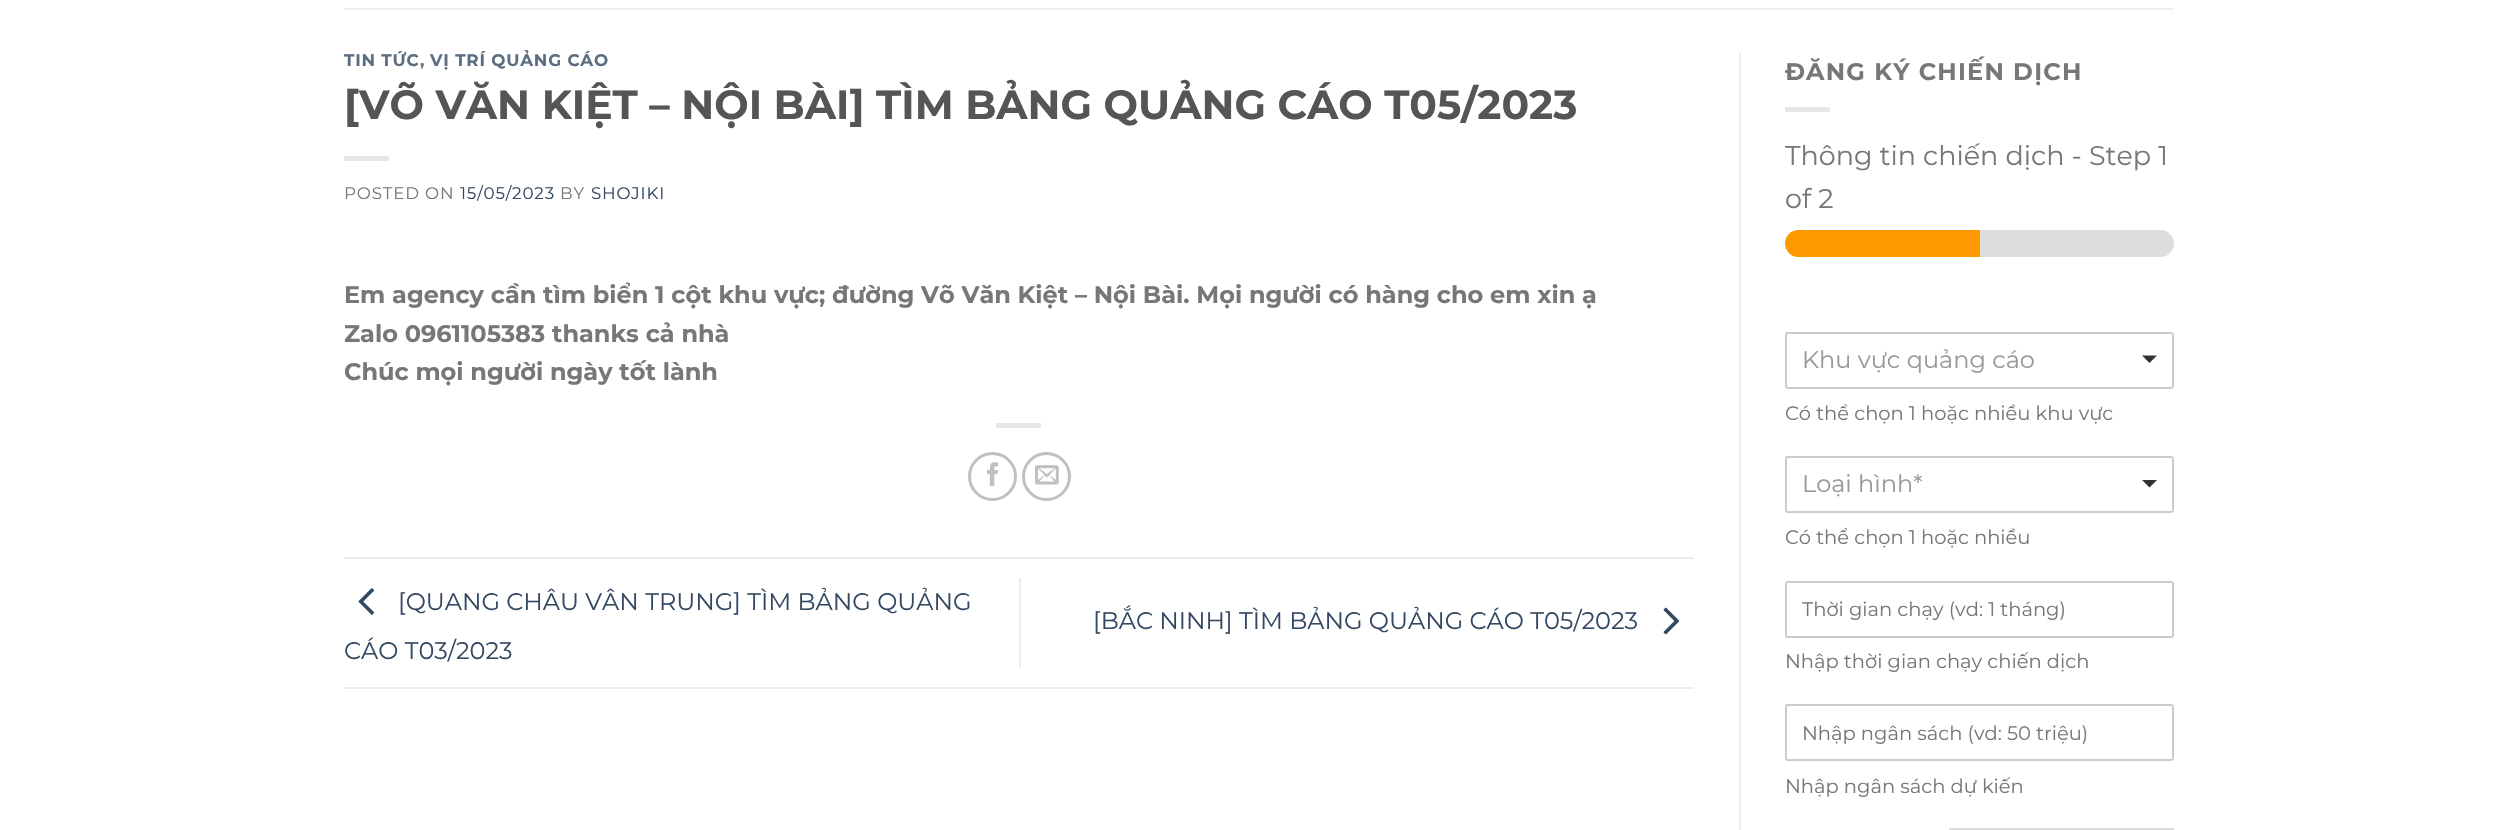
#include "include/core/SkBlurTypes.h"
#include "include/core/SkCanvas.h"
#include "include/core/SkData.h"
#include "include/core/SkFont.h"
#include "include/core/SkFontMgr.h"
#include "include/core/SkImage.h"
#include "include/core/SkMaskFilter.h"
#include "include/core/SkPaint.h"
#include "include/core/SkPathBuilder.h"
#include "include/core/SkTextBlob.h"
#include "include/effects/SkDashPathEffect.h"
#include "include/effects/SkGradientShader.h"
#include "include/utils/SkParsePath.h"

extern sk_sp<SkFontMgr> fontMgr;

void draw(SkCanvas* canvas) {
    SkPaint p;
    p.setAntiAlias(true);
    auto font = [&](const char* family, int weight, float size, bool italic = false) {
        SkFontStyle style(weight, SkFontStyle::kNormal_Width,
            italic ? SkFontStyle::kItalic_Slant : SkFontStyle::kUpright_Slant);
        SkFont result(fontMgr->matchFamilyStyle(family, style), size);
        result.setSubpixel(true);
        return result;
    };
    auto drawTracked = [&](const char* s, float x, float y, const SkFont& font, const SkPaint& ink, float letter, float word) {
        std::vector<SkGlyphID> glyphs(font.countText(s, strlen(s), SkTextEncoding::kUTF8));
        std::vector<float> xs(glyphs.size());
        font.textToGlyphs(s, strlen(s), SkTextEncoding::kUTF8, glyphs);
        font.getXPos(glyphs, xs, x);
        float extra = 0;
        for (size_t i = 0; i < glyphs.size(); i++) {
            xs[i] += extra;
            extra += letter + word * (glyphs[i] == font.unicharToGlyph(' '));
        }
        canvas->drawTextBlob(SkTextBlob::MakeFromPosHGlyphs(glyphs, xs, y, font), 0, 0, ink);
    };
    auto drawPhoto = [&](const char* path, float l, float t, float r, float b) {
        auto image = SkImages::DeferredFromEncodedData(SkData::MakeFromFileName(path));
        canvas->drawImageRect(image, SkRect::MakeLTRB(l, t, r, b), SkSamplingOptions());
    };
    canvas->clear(0xFFFFFFFF);
    p.setColor(0xFFF1F1F1);
    canvas->drawRect(SkRect::MakeLTRB(344, 8, 2174, 10), p);
    auto font1 = font("Montserrat", 700, 16.75f);
    p.setColor(0xFF5C6D81);
    drawTracked("TIN TỨC", 344, 66, font1, p, 0.8f, 0);
    p.setColor(0xFF777777);
    drawTracked(",", 420, 66, font1, p, 0.8f, 0);
    p.setColor(0xFF5C6D81);
    drawTracked("VỊ TRÍ QUẢNG CÁO", 430, 66, font1, p, 0.8f, 0);
    auto font2 = font("Montserrat", 700, 40.8f);
    p.setColor(0xFF555555);
    canvas->drawString("[VÕ VĂN KIỆT – NỘI BÀI] TÌM BẢNG QUẢNG CÁO T05/2023", 344, 119, font2, p);
    p.setColor(0xFFE6E6E6);
    canvas->drawRect(SkRect::MakeLTRB(344, 156, 389, 161), p);
    auto font3 = font("Montserrat", 400, 16.75f);
    p.setColor(0xFF777777);
    drawTracked("POSTED ON", 344, 199, font3, p, 0.8f, 0);
    p.setColor(0xFF334862);
    drawTracked("15/05/2023", 460, 199, font3, p, 0.8f, 0);
    p.setColor(0xFF777777);
    drawTracked("BY", 560, 199, font3, p, 0.8f, 0);
    p.setColor(0xFF334862);
    drawTracked("SHOJIKI", 591, 199, font3, p, 0.8f, 0);
    auto font4 = font("Montserrat", 700, 24);
    p.setColor(0xFF777777);
    {
        const struct { const char* s; float x, y; } items[] = {
            {"Em agency cần tìm biển 1 cột khu vực; đường Võ Văn Kiệt – Nội Bài. Mọi người có hàng cho em xin ạ", 344, 303},
            {"Zalo 0961105383 thanks cả nhà", 344, 342},
            {"Chúc mọi người ngày tốt lành", 344, 380},
        };
        for (auto [s, x, y] : items) {
            canvas->drawString(s, x, y, font4, p);
        }
    }
    p.setColor(0xFFE6E6E6);
    canvas->drawRect(SkRect::MakeLTRB(996, 423, 1041, 428), p);
    p.setStyle(SkPaint::kStroke_Style);
    p.setStrokeWidth(3);
    p.setColor(0xFFC0C0C0);
    canvas->drawCircle(992.5f, 476.5f, 23, p);
    drawPhoto("media/1.png", 987, 462, 998, 486);
    canvas->drawCircle(1046.5f, 476.5f, 23, p);
    drawPhoto("media/2.png", 1035, 465, 1059, 485);
    p.setStyle(SkPaint::kFill_Style);
    p.setColor(0xFFECECEC);
    canvas->drawRect(SkRect::MakeLTRB(344, 557, 1694, 559), p);
    canvas->drawRect(SkRect::MakeLTRB(344, 687, 1694, 689), p);
    drawPhoto("media/3.png", 358, 588, 375, 615);
    auto font5 = font("Montserrat", 400, 24);
    p.setColor(0xFF334862);
    canvas->drawString("[QUANG CHÂU VÂN TRUNG] TÌM BẢNG QUẢNG", 398, 610, font5, p);
    canvas->drawString("CÁO T03/2023", 344, 659, font5, p);
    p.setColor(0xFFECECEC);
    canvas->drawRect(SkRect::MakeLTRB(1019, 578, 1021, 668), p);
    p.setColor(0xFF334862);
    canvas->drawString("[BẮC NINH] TÌM BẢNG QUẢNG CÁO T05/2023", 1093, 629, font5, p);
    drawPhoto("media/4.png", 1663, 607, 1680, 635);
    p.setColor(0xFFECECEC);
    canvas->drawRect(SkRect::MakeLTRB(1739, 53, 1741, 830), p);
    p.setColor(0xFF777777);
    drawTracked("ĐĂNG KÝ CHIẾN DỊCH", 1785, 80, font4, p, 1.25f, 0);
    p.setColor(0xFFE6E6E6);
    canvas->drawRect(SkRect::MakeLTRB(1785, 107, 1830, 112), p);
    auto font6 = font("Montserrat", 400, 27);
    p.setColor(0xFF777777);
    canvas->drawString("Thông tin chiến dịch - Step 1", 1785, 165, font6, p);
    canvas->drawString("of 2", 1785, 208, font6, p);
    p.setColor(0xFFDDDDDD);
    canvas->drawRoundRect(SkRect::MakeLTRB(1785, 230, 2174, 257), 13.5f, 13.5f, p);
    p.setColor(0xFFFF9900);
    canvas->drawPath(SkPathBuilder().moveTo(1798.5f, 230).lineTo(1980, 230).lineTo(1980, 257).lineTo(1798.5f, 257).cubicTo(1791, 257, 1785, 251, 1785, 243.5f).cubicTo(1785, 236, 1791, 230, 1798.5f, 230).close().detach(), p);
    p.setStyle(SkPaint::kStroke_Style);
    p.setStrokeWidth(2);
    p.setColor(0xFFCCCCCC);
    canvas->drawRoundRect(SkRect::MakeLTRB(1786, 333, 2173, 388), 2, 2, p);
    p.setStyle(SkPaint::kFill_Style);
    p.setColor(0xFF999999);
    canvas->drawString("Khu vực quảng cáo", 1802, 368, font5, p);
    p.setColor(0xFF333333);
    canvas->drawPath(SkPathBuilder().moveTo(2142, 355.5f).lineTo(2157, 355.5f).lineTo(2149.5f, 363).close().detach(), p);
    auto font7 = font("Montserrat", 400, 19.5f);
    p.setColor(0xFF777777);
    canvas->drawString("Có thể chọn 1 hoặc nhiều khu vực", 1785, 420, font7, p);
    p.setStyle(SkPaint::kStroke_Style);
    p.setColor(0xFFCCCCCC);
    canvas->drawRoundRect(SkRect::MakeLTRB(1786, 457, 2173, 512), 2, 2, p);
    p.setStyle(SkPaint::kFill_Style);
    p.setColor(0xFF999999);
    canvas->drawString("Loại hình*", 1802, 492, font5, p);
    p.setColor(0xFF333333);
    canvas->drawPath(SkPathBuilder().moveTo(2142, 480).lineTo(2157, 480).lineTo(2149.5f, 487.5f).close().detach(), p);
    p.setColor(0xFF777777);
    canvas->drawString("Có thể chọn 1 hoặc nhiều", 1785, 544, font7, p);
    p.setStyle(SkPaint::kStroke_Style);
    p.setColor(0xFFCCCCCC);
    canvas->drawRoundRect(SkRect::MakeLTRB(1786, 582, 2173, 637), 2, 2, p);
    p.setStyle(SkPaint::kFill_Style);
    p.setColor(0xFF777777);
    canvas->drawString("Thời gian chạy (vd: 1 tháng)", 1802, 616, font7, p);
    canvas->drawString("Nhập thời gian chạy chiến dịch", 1785, 668, font7, p);
    p.setStyle(SkPaint::kStroke_Style);
    p.setColor(0xFFCCCCCC);
    canvas->drawRoundRect(SkRect::MakeLTRB(1786, 705, 2173, 760), 2, 2, p);
    p.setStyle(SkPaint::kFill_Style);
    p.setColor(0xFF777777);
    canvas->drawString("Nhập ngân sách (vd: 50 triệu)", 1802, 740, font7, p);
    canvas->drawString("Nhập ngân sách dự kiến", 1785, 793, font7, p);
    p.setStyle(SkPaint::kStroke_Style);
    p.setColor(0xFFDDDDDD);
    canvas->drawRect(SkRect::MakeLTRB(1950, 829, 2173, 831), p);
}
